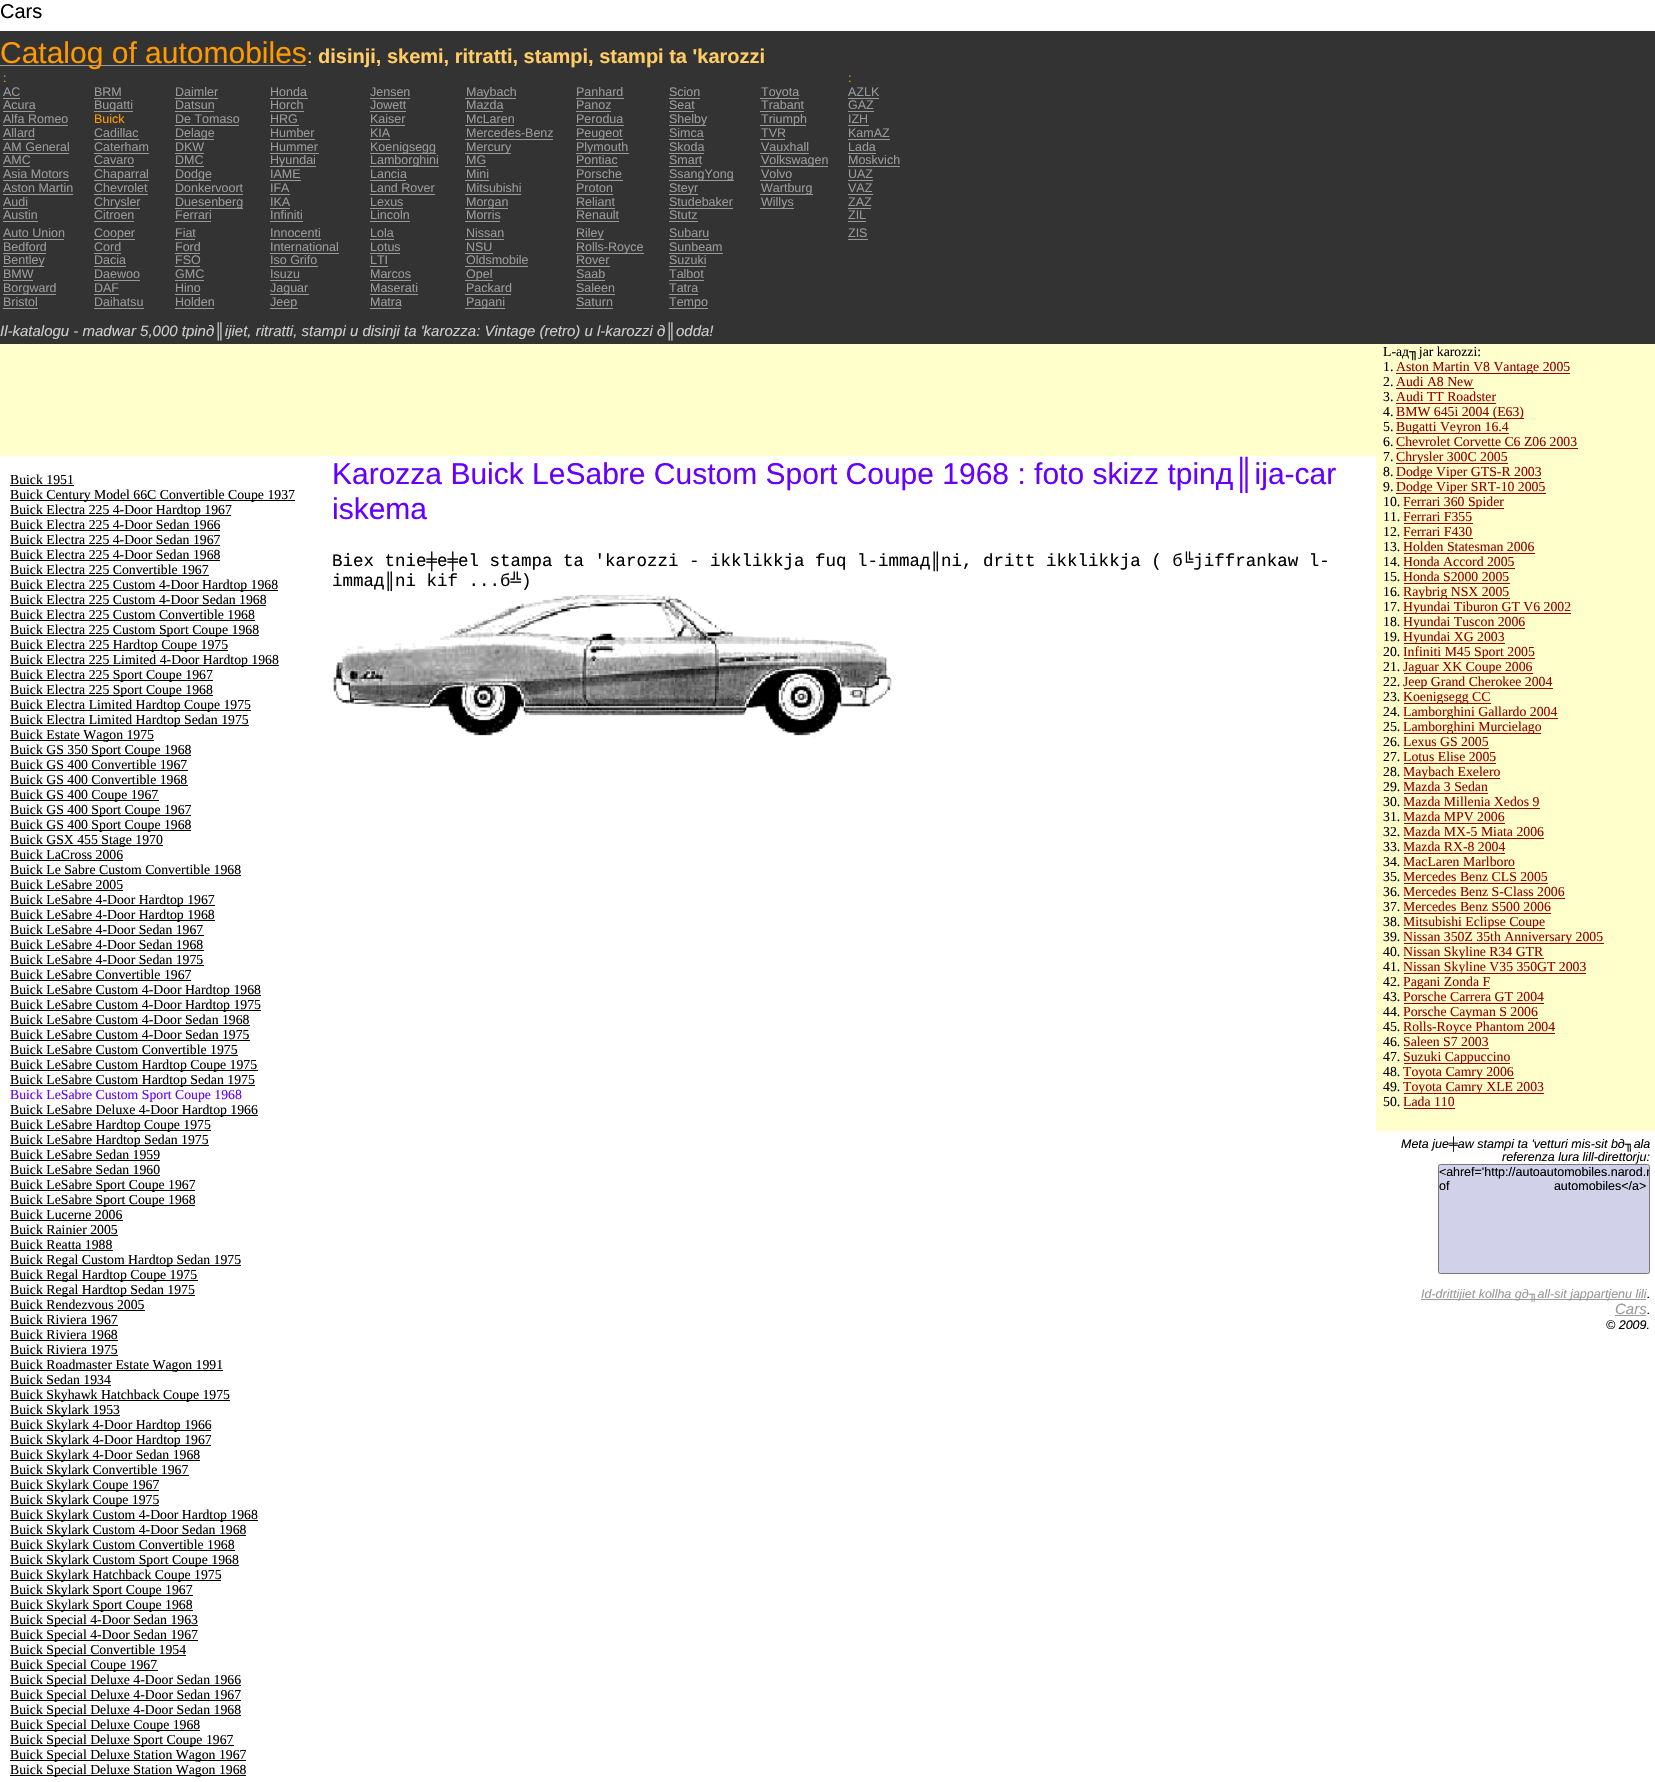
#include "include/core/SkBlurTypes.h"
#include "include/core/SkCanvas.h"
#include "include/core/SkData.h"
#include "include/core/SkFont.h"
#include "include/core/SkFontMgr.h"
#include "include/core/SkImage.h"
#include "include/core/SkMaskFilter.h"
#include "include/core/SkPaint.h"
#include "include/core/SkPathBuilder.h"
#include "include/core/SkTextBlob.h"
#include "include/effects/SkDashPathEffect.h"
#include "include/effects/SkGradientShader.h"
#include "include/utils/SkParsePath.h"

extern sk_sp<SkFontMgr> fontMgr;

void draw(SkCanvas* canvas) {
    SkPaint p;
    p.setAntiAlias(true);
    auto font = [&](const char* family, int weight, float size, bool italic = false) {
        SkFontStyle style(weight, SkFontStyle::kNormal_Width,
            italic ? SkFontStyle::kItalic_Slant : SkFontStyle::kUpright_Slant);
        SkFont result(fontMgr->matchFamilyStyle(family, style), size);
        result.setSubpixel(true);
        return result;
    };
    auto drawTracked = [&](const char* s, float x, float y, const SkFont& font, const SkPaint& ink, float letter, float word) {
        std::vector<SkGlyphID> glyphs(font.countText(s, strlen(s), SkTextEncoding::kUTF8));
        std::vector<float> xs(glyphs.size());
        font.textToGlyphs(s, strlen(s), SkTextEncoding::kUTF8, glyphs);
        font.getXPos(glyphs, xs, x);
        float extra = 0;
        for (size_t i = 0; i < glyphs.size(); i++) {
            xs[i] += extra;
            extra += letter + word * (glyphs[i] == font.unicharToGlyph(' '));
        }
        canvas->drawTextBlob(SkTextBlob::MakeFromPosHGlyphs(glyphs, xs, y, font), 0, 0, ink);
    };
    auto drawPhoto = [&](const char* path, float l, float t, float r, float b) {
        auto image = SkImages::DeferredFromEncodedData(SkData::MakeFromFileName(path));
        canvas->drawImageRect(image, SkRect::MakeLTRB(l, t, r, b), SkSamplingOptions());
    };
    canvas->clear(0xFFFFFFFF);
    auto font1 = font("Liberation Sans", 400, 20);
    p.setColor(0xFF000000);
    canvas->drawString("Cars", 0, 18, font1, p);
    p.setColor(0xFF333333);
    canvas->drawRect(SkRect::MakeLTRB(0, 31, 1655, 344), p);
    p.setColor(0xFF999999);
    canvas->drawRect(SkRect::MakeLTRB(0, 65, 306, 66), p);
    auto font2 = font("Liberation Sans", 400, 30);
    p.setColor(0xFFFF9900);
    canvas->drawString("Catalog of automobiles", 0, 63, font2, p);
    p.setColor(0xFFFFCC66);
    canvas->drawString(":", 307, 63, font1, p);
    auto font3 = font("Liberation Sans", 700, 20);
    canvas->drawString("disinji, skemi, ritratti, stampi, stampi ta 'karozzi", 318, 63, font3, p);
    auto font4 = font("Liberation Sans", 400, 12.5f);
    p.setColor(0xFFFF9900);
    canvas->drawString(":", 3, 82, font4, p);
    canvas->drawString(":", 848, 82, font4, p);
    p.setColor(0xFF999999);
    canvas->drawString("AC", 3, 96, font4, p);
    canvas->drawRect(SkRect::MakeLTRB(3, 98, 20, 99), p);
    canvas->drawString("BRM", 94, 96, font4, p);
    canvas->drawRect(SkRect::MakeLTRB(94, 98, 121, 99), p);
    canvas->drawString("Daimler", 175, 96, font4, p);
    canvas->drawRect(SkRect::MakeLTRB(175, 98, 218, 99), p);
    canvas->drawString("Honda", 270, 96, font4, p);
    canvas->drawRect(SkRect::MakeLTRB(270, 98, 308, 99), p);
    canvas->drawString("Jensen", 370, 96, font4, p);
    canvas->drawRect(SkRect::MakeLTRB(370, 98, 410, 99), p);
    canvas->drawRect(SkRect::MakeLTRB(465, 98, 516, 99), p);
    canvas->drawString("Maybach", 466, 96, font4, p);
    canvas->drawString("Panhard", 576, 96, font4, p);
    canvas->drawRect(SkRect::MakeLTRB(576, 98, 624, 99), p);
    canvas->drawString("Scion", 669, 96, font4, p);
    canvas->drawRect(SkRect::MakeLTRB(669, 98, 700, 99), p);
    canvas->drawRect(SkRect::MakeLTRB(760, 98, 799, 99), p);
    canvas->drawString("Toyota", 761, 96, font4, p);
    canvas->drawString("AZLK", 848, 96, font4, p);
    canvas->drawRect(SkRect::MakeLTRB(848, 98, 879, 99), p);
    canvas->drawString("Acura", 3, 109, font4, p);
    canvas->drawRect(SkRect::MakeLTRB(3, 111, 35, 112), p);
    canvas->drawRect(SkRect::MakeLTRB(94, 111, 133, 112), p);
    canvas->drawString("Bugatti", 94, 109, font4, p);
    canvas->drawString("Datsun", 175, 109, font4, p);
    canvas->drawRect(SkRect::MakeLTRB(175, 111, 214, 112), p);
    canvas->drawString("Horch", 270, 109, font4, p);
    canvas->drawRect(SkRect::MakeLTRB(270, 111, 304, 112), p);
    canvas->drawString("Jowett", 370, 109, font4, p);
    canvas->drawRect(SkRect::MakeLTRB(370, 111, 406, 112), p);
    canvas->drawString("Mazda", 466, 109, font4, p);
    canvas->drawRect(SkRect::MakeLTRB(465, 111, 503, 112), p);
    canvas->drawString("Panoz", 576, 109, font4, p);
    canvas->drawRect(SkRect::MakeLTRB(576, 111, 611, 112), p);
    canvas->drawString("Seat", 669, 109, font4, p);
    canvas->drawRect(SkRect::MakeLTRB(669, 111, 694, 112), p);
    canvas->drawString("Trabant", 761, 109, font4, p);
    canvas->drawRect(SkRect::MakeLTRB(760, 111, 804, 112), p);
    canvas->drawString("GAZ", 848, 109, font4, p);
    canvas->drawRect(SkRect::MakeLTRB(848, 111, 874, 112), p);
    canvas->drawString("Alfa Romeo", 3, 123, font4, p);
    canvas->drawRect(SkRect::MakeLTRB(3, 125, 68, 126), p);
    p.setColor(0xFFFF9900);
    canvas->drawString("Buick", 94, 123, font4, p);
    p.setColor(0xFF999999);
    canvas->drawString("De Tomaso", 175, 123, font4, p);
    canvas->drawRect(SkRect::MakeLTRB(175, 125, 239, 126), p);
    canvas->drawString("HRG", 270, 123, font4, p);
    canvas->drawRect(SkRect::MakeLTRB(270, 125, 299, 126), p);
    canvas->drawString("Kaiser", 370, 123, font4, p);
    canvas->drawRect(SkRect::MakeLTRB(370, 125, 405, 126), p);
    canvas->drawString("McLaren", 466, 123, font4, p);
    canvas->drawRect(SkRect::MakeLTRB(465, 125, 514, 126), p);
    canvas->drawString("Perodua", 576, 123, font4, p);
    canvas->drawRect(SkRect::MakeLTRB(576, 125, 624, 126), p);
    canvas->drawRect(SkRect::MakeLTRB(669, 125, 706, 126), p);
    canvas->drawString("Shelby", 669, 123, font4, p);
    canvas->drawRect(SkRect::MakeLTRB(760, 125, 806, 126), p);
    canvas->drawString("Triumph", 761, 123, font4, p);
    canvas->drawString("IZH", 848, 123, font4, p);
    canvas->drawRect(SkRect::MakeLTRB(848, 125, 869, 126), p);
    canvas->drawString("Allard", 3, 137, font4, p);
    canvas->drawRect(SkRect::MakeLTRB(3, 139, 35, 140), p);
    canvas->drawString("Cadillac", 94, 137, font4, p);
    canvas->drawRect(SkRect::MakeLTRB(94, 139, 139, 140), p);
    canvas->drawRect(SkRect::MakeLTRB(175, 139, 214, 140), p);
    canvas->drawString("Delage", 175, 137, font4, p);
    canvas->drawString("Humber", 270, 137, font4, p);
    canvas->drawRect(SkRect::MakeLTRB(270, 139, 315, 140), p);
    canvas->drawString("KIA", 370, 137, font4, p);
    canvas->drawRect(SkRect::MakeLTRB(370, 139, 390, 140), p);
    canvas->drawString("Mercedes-Benz", 466, 137, font4, p);
    canvas->drawRect(SkRect::MakeLTRB(465, 139, 553, 140), p);
    canvas->drawRect(SkRect::MakeLTRB(576, 139, 623, 140), p);
    canvas->drawString("Peugeot", 576, 137, font4, p);
    canvas->drawString("Simca", 669, 137, font4, p);
    canvas->drawRect(SkRect::MakeLTRB(669, 139, 704, 140), p);
    canvas->drawString("TVR", 761, 137, font4, p);
    canvas->drawRect(SkRect::MakeLTRB(760, 139, 785, 140), p);
    canvas->drawString("KamAZ", 848, 137, font4, p);
    canvas->drawRect(SkRect::MakeLTRB(848, 139, 890, 140), p);
    canvas->drawString("AM General", 3, 151, font4, p);
    canvas->drawRect(SkRect::MakeLTRB(3, 153, 69, 154), p);
    canvas->drawString("Caterham", 94, 151, font4, p);
    canvas->drawRect(SkRect::MakeLTRB(94, 153, 149, 154), p);
    canvas->drawString("DKW", 175, 151, font4, p);
    canvas->drawRect(SkRect::MakeLTRB(175, 153, 204, 154), p);
    canvas->drawString("Hummer", 270, 151, font4, p);
    canvas->drawRect(SkRect::MakeLTRB(270, 153, 319, 154), p);
    canvas->drawRect(SkRect::MakeLTRB(370, 153, 436, 154), p);
    canvas->drawString("Koenigsegg", 370, 151, font4, p);
    canvas->drawRect(SkRect::MakeLTRB(465, 153, 511, 154), p);
    canvas->drawString("Mercury", 466, 151, font4, p);
    canvas->drawRect(SkRect::MakeLTRB(576, 153, 629, 154), p);
    canvas->drawString("Plymouth", 576, 151, font4, p);
    canvas->drawString("Skoda", 669, 151, font4, p);
    canvas->drawRect(SkRect::MakeLTRB(669, 153, 704, 154), p);
    canvas->drawString("Vauxhall", 761, 151, font4, p);
    canvas->drawRect(SkRect::MakeLTRB(760, 153, 809, 154), p);
    canvas->drawString("Lada", 848, 151, font4, p);
    canvas->drawRect(SkRect::MakeLTRB(848, 153, 876, 154), p);
    canvas->drawString("AMC", 3, 164, font4, p);
    canvas->drawRect(SkRect::MakeLTRB(3, 166, 30, 167), p);
    canvas->drawString("Cavaro", 94, 164, font4, p);
    canvas->drawRect(SkRect::MakeLTRB(94, 166, 134, 167), p);
    canvas->drawString("DMC", 175, 164, font4, p);
    canvas->drawRect(SkRect::MakeLTRB(175, 166, 204, 167), p);
    canvas->drawRect(SkRect::MakeLTRB(270, 166, 316, 167), p);
    canvas->drawString("Hyundai", 270, 164, font4, p);
    canvas->drawRect(SkRect::MakeLTRB(370, 166, 439, 167), p);
    canvas->drawString("Lamborghini", 370, 164, font4, p);
    canvas->drawString("MG", 466, 164, font4, p);
    canvas->drawRect(SkRect::MakeLTRB(465, 166, 486, 167), p);
    canvas->drawString("Pontiac", 576, 164, font4, p);
    canvas->drawRect(SkRect::MakeLTRB(576, 166, 618, 167), p);
    canvas->drawString("Smart", 669, 164, font4, p);
    canvas->drawRect(SkRect::MakeLTRB(669, 166, 701, 167), p);
    canvas->drawRect(SkRect::MakeLTRB(760, 166, 828, 167), p);
    canvas->drawString("Volkswagen", 761, 164, font4, p);
    canvas->drawString("Moskvich", 848, 164, font4, p);
    canvas->drawRect(SkRect::MakeLTRB(848, 166, 900, 167), p);
    canvas->drawString("Asia Motors", 3, 178, font4, p);
    canvas->drawRect(SkRect::MakeLTRB(3, 180, 69, 181), p);
    canvas->drawRect(SkRect::MakeLTRB(94, 180, 149, 181), p);
    canvas->drawString("Chaparral", 94, 178, font4, p);
    canvas->drawRect(SkRect::MakeLTRB(175, 180, 211, 181), p);
    canvas->drawString("Dodge", 175, 178, font4, p);
    canvas->drawString("IAME", 270, 178, font4, p);
    canvas->drawRect(SkRect::MakeLTRB(270, 180, 301, 181), p);
    canvas->drawString("Lancia", 370, 178, font4, p);
    canvas->drawRect(SkRect::MakeLTRB(370, 180, 406, 181), p);
    canvas->drawString("Mini", 466, 178, font4, p);
    canvas->drawRect(SkRect::MakeLTRB(465, 180, 489, 181), p);
    canvas->drawString("Porsche", 576, 178, font4, p);
    canvas->drawRect(SkRect::MakeLTRB(576, 180, 623, 181), p);
    canvas->drawRect(SkRect::MakeLTRB(669, 180, 734, 181), p);
    canvas->drawString("SsangYong", 669, 178, font4, p);
    canvas->drawString("Volvo", 761, 178, font4, p);
    canvas->drawRect(SkRect::MakeLTRB(760, 180, 791, 181), p);
    canvas->drawString("UAZ", 848, 178, font4, p);
    canvas->drawRect(SkRect::MakeLTRB(848, 180, 873, 181), p);
    canvas->drawString("Aston Martin", 3, 192, font4, p);
    canvas->drawRect(SkRect::MakeLTRB(3, 194, 73, 195), p);
    canvas->drawString("Chevrolet", 94, 192, font4, p);
    canvas->drawRect(SkRect::MakeLTRB(94, 194, 148, 195), p);
    canvas->drawString("Donkervoort", 175, 192, font4, p);
    canvas->drawRect(SkRect::MakeLTRB(175, 194, 243, 195), p);
    canvas->drawString("IFA", 270, 192, font4, p);
    canvas->drawRect(SkRect::MakeLTRB(270, 194, 290, 195), p);
    canvas->drawString("Land Rover", 370, 192, font4, p);
    canvas->drawRect(SkRect::MakeLTRB(370, 194, 435, 195), p);
    canvas->drawString("Mitsubishi", 466, 192, font4, p);
    canvas->drawRect(SkRect::MakeLTRB(465, 194, 521, 195), p);
    canvas->drawString("Proton", 576, 192, font4, p);
    canvas->drawRect(SkRect::MakeLTRB(576, 194, 613, 195), p);
    canvas->drawRect(SkRect::MakeLTRB(669, 194, 698, 195), p);
    canvas->drawString("Steyr", 669, 192, font4, p);
    canvas->drawRect(SkRect::MakeLTRB(760, 194, 813, 195), p);
    canvas->drawString("Wartburg", 761, 192, font4, p);
    canvas->drawString("VAZ", 848, 192, font4, p);
    canvas->drawRect(SkRect::MakeLTRB(848, 194, 873, 195), p);
    canvas->drawString("Audi", 3, 206, font4, p);
    canvas->drawRect(SkRect::MakeLTRB(3, 208, 28, 209), p);
    canvas->drawRect(SkRect::MakeLTRB(94, 208, 140, 209), p);
    canvas->drawString("Chrysler", 94, 206, font4, p);
    canvas->drawRect(SkRect::MakeLTRB(175, 208, 243, 209), p);
    canvas->drawString("Duesenberg", 175, 206, font4, p);
    canvas->drawString("IKA", 270, 206, font4, p);
    canvas->drawRect(SkRect::MakeLTRB(270, 208, 290, 209), p);
    canvas->drawString("Lexus", 370, 206, font4, p);
    canvas->drawRect(SkRect::MakeLTRB(370, 208, 403, 209), p);
    canvas->drawRect(SkRect::MakeLTRB(465, 208, 508, 209), p);
    canvas->drawString("Morgan", 466, 206, font4, p);
    canvas->drawString("Reliant", 576, 206, font4, p);
    canvas->drawRect(SkRect::MakeLTRB(576, 208, 615, 209), p);
    canvas->drawString("Studebaker", 669, 206, font4, p);
    canvas->drawRect(SkRect::MakeLTRB(669, 208, 733, 209), p);
    canvas->drawRect(SkRect::MakeLTRB(760, 208, 794, 209), p);
    canvas->drawString("Willys", 761, 206, font4, p);
    canvas->drawString("ZAZ", 848, 206, font4, p);
    canvas->drawRect(SkRect::MakeLTRB(848, 208, 871, 209), p);
    canvas->drawString("Austin", 3, 219, font4, p);
    canvas->drawRect(SkRect::MakeLTRB(3, 221, 38, 222), p);
    canvas->drawString("Citroen", 94, 219, font4, p);
    canvas->drawRect(SkRect::MakeLTRB(94, 221, 134, 222), p);
    canvas->drawString("Ferrari", 175, 219, font4, p);
    canvas->drawRect(SkRect::MakeLTRB(175, 221, 211, 222), p);
    canvas->drawString("Infiniti", 270, 219, font4, p);
    canvas->drawRect(SkRect::MakeLTRB(270, 221, 303, 222), p);
    canvas->drawString("Lincoln", 370, 219, font4, p);
    canvas->drawRect(SkRect::MakeLTRB(370, 221, 410, 222), p);
    canvas->drawString("Morris", 466, 219, font4, p);
    canvas->drawRect(SkRect::MakeLTRB(465, 221, 500, 222), p);
    canvas->drawString("Renault", 576, 219, font4, p);
    canvas->drawRect(SkRect::MakeLTRB(576, 221, 619, 222), p);
    canvas->drawString("Stutz", 669, 219, font4, p);
    canvas->drawRect(SkRect::MakeLTRB(669, 221, 698, 222), p);
    canvas->drawString("ZIL", 848, 219, font4, p);
    canvas->drawRect(SkRect::MakeLTRB(848, 221, 866, 222), p);
    canvas->drawString("Auto Union", 3, 237, font4, p);
    canvas->drawRect(SkRect::MakeLTRB(3, 239, 64, 240), p);
    canvas->drawRect(SkRect::MakeLTRB(94, 239, 135, 240), p);
    canvas->drawString("Cooper", 94, 237, font4, p);
    canvas->drawString("Fiat", 175, 237, font4, p);
    canvas->drawRect(SkRect::MakeLTRB(175, 239, 195, 240), p);
    canvas->drawString("Innocenti", 270, 237, font4, p);
    canvas->drawRect(SkRect::MakeLTRB(270, 239, 321, 240), p);
    canvas->drawString("Lola", 370, 237, font4, p);
    canvas->drawRect(SkRect::MakeLTRB(370, 239, 394, 240), p);
    canvas->drawString("Nissan", 466, 237, font4, p);
    canvas->drawRect(SkRect::MakeLTRB(465, 239, 504, 240), p);
    canvas->drawRect(SkRect::MakeLTRB(576, 239, 604, 240), p);
    canvas->drawString("Riley", 576, 237, font4, p);
    canvas->drawString("Subaru", 669, 237, font4, p);
    canvas->drawRect(SkRect::MakeLTRB(669, 239, 709, 240), p);
    canvas->drawString("ZIS", 848, 237, font4, p);
    canvas->drawRect(SkRect::MakeLTRB(848, 239, 868, 240), p);
    canvas->drawString("Bedford", 3, 251, font4, p);
    canvas->drawRect(SkRect::MakeLTRB(3, 253, 46, 254), p);
    canvas->drawString("Cord", 94, 251, font4, p);
    canvas->drawRect(SkRect::MakeLTRB(94, 253, 121, 254), p);
    canvas->drawString("Ford", 175, 251, font4, p);
    canvas->drawRect(SkRect::MakeLTRB(175, 253, 200, 254), p);
    canvas->drawString("International", 270, 251, font4, p);
    canvas->drawRect(SkRect::MakeLTRB(270, 253, 339, 254), p);
    canvas->drawString("Lotus", 370, 251, font4, p);
    canvas->drawRect(SkRect::MakeLTRB(370, 253, 400, 254), p);
    canvas->drawString("NSU", 466, 251, font4, p);
    canvas->drawRect(SkRect::MakeLTRB(465, 253, 493, 254), p);
    canvas->drawRect(SkRect::MakeLTRB(576, 253, 644, 254), p);
    canvas->drawString("Rolls-Royce", 576, 251, font4, p);
    canvas->drawString("Sunbeam", 669, 251, font4, p);
    canvas->drawRect(SkRect::MakeLTRB(669, 253, 723, 254), p);
    canvas->drawRect(SkRect::MakeLTRB(3, 266, 44, 267), p);
    canvas->drawString("Bentley", 3, 264, font4, p);
    canvas->drawString("Dacia", 94, 264, font4, p);
    canvas->drawRect(SkRect::MakeLTRB(94, 266, 126, 267), p);
    canvas->drawString("FSO", 175, 264, font4, p);
    canvas->drawRect(SkRect::MakeLTRB(175, 266, 200, 267), p);
    canvas->drawString("Iso Grifo", 270, 264, font4, p);
    canvas->drawRect(SkRect::MakeLTRB(270, 266, 318, 267), p);
    canvas->drawString("LTI", 370, 264, font4, p);
    canvas->drawRect(SkRect::MakeLTRB(370, 266, 388, 267), p);
    canvas->drawString("Oldsmobile", 466, 264, font4, p);
    canvas->drawRect(SkRect::MakeLTRB(465, 266, 528, 267), p);
    canvas->drawString("Rover", 576, 264, font4, p);
    canvas->drawRect(SkRect::MakeLTRB(576, 266, 610, 267), p);
    canvas->drawString("Suzuki", 669, 264, font4, p);
    canvas->drawRect(SkRect::MakeLTRB(669, 266, 706, 267), p);
    canvas->drawString("BMW", 3, 278, font4, p);
    canvas->drawRect(SkRect::MakeLTRB(3, 280, 33, 281), p);
    canvas->drawString("Daewoo", 94, 278, font4, p);
    canvas->drawRect(SkRect::MakeLTRB(94, 280, 140, 281), p);
    canvas->drawString("GMC", 175, 278, font4, p);
    canvas->drawRect(SkRect::MakeLTRB(175, 280, 204, 281), p);
    canvas->drawString("Isuzu", 270, 278, font4, p);
    canvas->drawRect(SkRect::MakeLTRB(270, 280, 300, 281), p);
    canvas->drawString("Marcos", 370, 278, font4, p);
    canvas->drawRect(SkRect::MakeLTRB(370, 280, 411, 281), p);
    canvas->drawRect(SkRect::MakeLTRB(465, 280, 493, 281), p);
    canvas->drawString("Opel", 466, 278, font4, p);
    canvas->drawString("Saab", 576, 278, font4, p);
    canvas->drawRect(SkRect::MakeLTRB(576, 280, 605, 281), p);
    canvas->drawString("Talbot", 669, 278, font4, p);
    canvas->drawRect(SkRect::MakeLTRB(669, 280, 704, 281), p);
    canvas->drawRect(SkRect::MakeLTRB(3, 294, 56, 295), p);
    canvas->drawString("Borgward", 3, 292, font4, p);
    canvas->drawString("DAF", 94, 292, font4, p);
    canvas->drawRect(SkRect::MakeLTRB(94, 294, 119, 295), p);
    canvas->drawString("Hino", 175, 292, font4, p);
    canvas->drawRect(SkRect::MakeLTRB(175, 294, 200, 295), p);
    canvas->drawRect(SkRect::MakeLTRB(270, 294, 309, 295), p);
    canvas->drawString("Jaguar", 270, 292, font4, p);
    canvas->drawString("Maserati", 370, 292, font4, p);
    canvas->drawRect(SkRect::MakeLTRB(370, 294, 418, 295), p);
    canvas->drawString("Packard", 466, 292, font4, p);
    canvas->drawRect(SkRect::MakeLTRB(465, 294, 511, 295), p);
    canvas->drawString("Saleen", 576, 292, font4, p);
    canvas->drawRect(SkRect::MakeLTRB(576, 294, 615, 295), p);
    canvas->drawString("Tatra", 669, 292, font4, p);
    canvas->drawRect(SkRect::MakeLTRB(669, 294, 698, 295), p);
    canvas->drawString("Bristol", 3, 306, font4, p);
    canvas->drawRect(SkRect::MakeLTRB(3, 308, 38, 309), p);
    canvas->drawString("Daihatsu", 94, 306, font4, p);
    canvas->drawRect(SkRect::MakeLTRB(94, 308, 144, 309), p);
    canvas->drawString("Holden", 175, 306, font4, p);
    canvas->drawRect(SkRect::MakeLTRB(175, 308, 214, 309), p);
    canvas->drawRect(SkRect::MakeLTRB(270, 308, 298, 309), p);
    canvas->drawString("Jeep", 270, 306, font4, p);
    canvas->drawString("Matra", 370, 306, font4, p);
    canvas->drawRect(SkRect::MakeLTRB(370, 308, 401, 309), p);
    canvas->drawRect(SkRect::MakeLTRB(465, 308, 505, 309), p);
    canvas->drawString("Pagani", 466, 306, font4, p);
    canvas->drawString("Saturn", 576, 306, font4, p);
    canvas->drawRect(SkRect::MakeLTRB(576, 308, 613, 309), p);
    canvas->drawRect(SkRect::MakeLTRB(669, 308, 708, 309), p);
    canvas->drawString("Tempo", 669, 306, font4, p);
    auto font5 = font("Liberation Sans", 400, 15, true);
    p.setColor(0xFFCCCCCC);
    canvas->drawString("Il-katalogu - madwar 5,000 tpinд║ijiet, ritratti, stampi u disinji ta 'karozza: Vintage (retro) u l-karozzi д║odda!", 0, 336, font5, p);
    auto font6 = font("Liberation Serif", 400, 13.75f);
    p.setColor(0xFF000000);
    canvas->drawString("Buick 1951", 10, 484, font6, p);
    canvas->drawRect(SkRect::MakeLTRB(10, 485, 74, 486), p);
    canvas->drawRect(SkRect::MakeLTRB(10, 500, 295, 501), p);
    canvas->drawString("Buick Century Model 66C Convertible Coupe 1937", 10, 499, font6, p);
    canvas->drawRect(SkRect::MakeLTRB(10, 515, 231, 516), p);
    canvas->drawString("Buick Electra 225 4-Door Hardtop 1967", 10, 514, font6, p);
    canvas->drawString("Buick Electra 225 4-Door Sedan 1966", 10, 529, font6, p);
    canvas->drawRect(SkRect::MakeLTRB(10, 530, 220, 531), p);
    canvas->drawString("Buick Electra 225 4-Door Sedan 1967", 10, 544, font6, p);
    canvas->drawRect(SkRect::MakeLTRB(10, 545, 220, 546), p);
    canvas->drawString("Buick Electra 225 4-Door Sedan 1968", 10, 559, font6, p);
    canvas->drawRect(SkRect::MakeLTRB(10, 560, 220, 561), p);
    canvas->drawString("Buick Electra 225 Convertible 1967", 10, 574, font6, p);
    canvas->drawRect(SkRect::MakeLTRB(10, 575, 209, 576), p);
    canvas->drawRect(SkRect::MakeLTRB(10, 590, 278, 591), p);
    canvas->drawString("Buick Electra 225 Custom 4-Door Hardtop 1968", 10, 589, font6, p);
    canvas->drawString("Buick Electra 225 Custom 4-Door Sedan 1968", 10, 604, font6, p);
    canvas->drawRect(SkRect::MakeLTRB(10, 605, 266, 606), p);
    canvas->drawString("Buick Electra 225 Custom Convertible 1968", 10, 619, font6, p);
    canvas->drawRect(SkRect::MakeLTRB(10, 620, 255, 621), p);
    canvas->drawRect(SkRect::MakeLTRB(10, 635, 259, 636), p);
    canvas->drawString("Buick Electra 225 Custom Sport Coupe 1968", 10, 634, font6, p);
    canvas->drawRect(SkRect::MakeLTRB(10, 650, 228, 651), p);
    canvas->drawString("Buick Electra 225 Hardtop Coupe 1975", 10, 649, font6, p);
    canvas->drawRect(SkRect::MakeLTRB(10, 665, 279, 666), p);
    canvas->drawString("Buick Electra 225 Limited 4-Door Hardtop 1968", 10, 664, font6, p);
    canvas->drawRect(SkRect::MakeLTRB(10, 680, 213, 681), p);
    canvas->drawString("Buick Electra 225 Sport Coupe 1967", 10, 679, font6, p);
    canvas->drawRect(SkRect::MakeLTRB(10, 695, 213, 696), p);
    canvas->drawString("Buick Electra 225 Sport Coupe 1968", 10, 694, font6, p);
    canvas->drawRect(SkRect::MakeLTRB(10, 710, 251, 711), p);
    canvas->drawString("Buick Electra Limited Hardtop Coupe 1975", 10, 709, font6, p);
    canvas->drawRect(SkRect::MakeLTRB(10, 725, 249, 726), p);
    canvas->drawString("Buick Electra Limited Hardtop Sedan 1975", 10, 724, font6, p);
    canvas->drawRect(SkRect::MakeLTRB(10, 740, 154, 741), p);
    canvas->drawString("Buick Estate Wagon 1975", 10, 739, font6, p);
    canvas->drawRect(SkRect::MakeLTRB(10, 755, 191, 756), p);
    canvas->drawString("Buick GS 350 Sport Coupe 1968", 10, 754, font6, p);
    canvas->drawString("Buick GS 400 Convertible 1967", 10, 769, font6, p);
    canvas->drawRect(SkRect::MakeLTRB(10, 770, 188, 771), p);
    canvas->drawString("Buick GS 400 Convertible 1968", 10, 784, font6, p);
    canvas->drawRect(SkRect::MakeLTRB(10, 785, 188, 786), p);
    canvas->drawRect(SkRect::MakeLTRB(10, 800, 159, 801), p);
    canvas->drawString("Buick GS 400 Coupe 1967", 10, 799, font6, p);
    canvas->drawRect(SkRect::MakeLTRB(10, 815, 191, 816), p);
    canvas->drawString("Buick GS 400 Sport Coupe 1967", 10, 814, font6, p);
    canvas->drawRect(SkRect::MakeLTRB(10, 830, 191, 831), p);
    canvas->drawString("Buick GS 400 Sport Coupe 1968", 10, 829, font6, p);
    canvas->drawRect(SkRect::MakeLTRB(10, 845, 163, 846), p);
    canvas->drawString("Buick GSX 455 Stage 1970", 10, 844, font6, p);
    canvas->drawString("Buick LaCross 2006", 10, 859, font6, p);
    canvas->drawRect(SkRect::MakeLTRB(10, 860, 123, 861), p);
    canvas->drawString("Buick Le Sabre Custom Convertible 1968", 10, 874, font6, p);
    canvas->drawRect(SkRect::MakeLTRB(10, 875, 241, 876), p);
    canvas->drawString("Buick LeSabre 2005", 10, 889, font6, p);
    canvas->drawRect(SkRect::MakeLTRB(10, 890, 123, 891), p);
    canvas->drawRect(SkRect::MakeLTRB(10, 905, 215, 906), p);
    canvas->drawString("Buick LeSabre 4-Door Hardtop 1967", 10, 904, font6, p);
    canvas->drawRect(SkRect::MakeLTRB(10, 920, 215, 921), p);
    canvas->drawString("Buick LeSabre 4-Door Hardtop 1968", 10, 919, font6, p);
    canvas->drawString("Buick LeSabre 4-Door Sedan 1967", 10, 934, font6, p);
    canvas->drawRect(SkRect::MakeLTRB(10, 935, 204, 936), p);
    canvas->drawString("Buick LeSabre 4-Door Sedan 1968", 10, 949, font6, p);
    canvas->drawRect(SkRect::MakeLTRB(10, 950, 204, 951), p);
    canvas->drawString("Buick LeSabre 4-Door Sedan 1975", 10, 964, font6, p);
    canvas->drawRect(SkRect::MakeLTRB(10, 965, 204, 966), p);
    canvas->drawString("Buick LeSabre Convertible 1967", 10, 979, font6, p);
    canvas->drawRect(SkRect::MakeLTRB(10, 980, 191, 981), p);
    canvas->drawRect(SkRect::MakeLTRB(10, 995, 261, 996), p);
    canvas->drawString("Buick LeSabre Custom 4-Door Hardtop 1968", 10, 994, font6, p);
    canvas->drawRect(SkRect::MakeLTRB(10, 1010, 261, 1011), p);
    canvas->drawString("Buick LeSabre Custom 4-Door Hardtop 1975", 10, 1009, font6, p);
    canvas->drawString("Buick LeSabre Custom 4-Door Sedan 1968", 10, 1024, font6, p);
    canvas->drawRect(SkRect::MakeLTRB(10, 1025, 250, 1026), p);
    canvas->drawString("Buick LeSabre Custom 4-Door Sedan 1975", 10, 1039, font6, p);
    canvas->drawRect(SkRect::MakeLTRB(10, 1040, 250, 1041), p);
    canvas->drawString("Buick LeSabre Custom Convertible 1975", 10, 1054, font6, p);
    canvas->drawRect(SkRect::MakeLTRB(10, 1055, 238, 1056), p);
    canvas->drawRect(SkRect::MakeLTRB(10, 1070, 258, 1071), p);
    canvas->drawString("Buick LeSabre Custom Hardtop Coupe 1975", 10, 1069, font6, p);
    canvas->drawRect(SkRect::MakeLTRB(10, 1085, 255, 1086), p);
    canvas->drawString("Buick LeSabre Custom Hardtop Sedan 1975", 10, 1084, font6, p);
    p.setColor(0xFF6600FF);
    canvas->drawString("Buick LeSabre Custom Sport Coupe 1968", 10, 1099, font6, p);
    p.setColor(0xFF000000);
    canvas->drawRect(SkRect::MakeLTRB(10, 1115, 258, 1116), p);
    canvas->drawString("Buick LeSabre Deluxe 4-Door Hardtop 1966", 10, 1114, font6, p);
    canvas->drawRect(SkRect::MakeLTRB(10, 1130, 211, 1131), p);
    canvas->drawString("Buick LeSabre Hardtop Coupe 1975", 10, 1129, font6, p);
    canvas->drawRect(SkRect::MakeLTRB(10, 1145, 209, 1146), p);
    canvas->drawString("Buick LeSabre Hardtop Sedan 1975", 10, 1144, font6, p);
    canvas->drawString("Buick LeSabre Sedan 1959", 10, 1159, font6, p);
    canvas->drawRect(SkRect::MakeLTRB(10, 1160, 160, 1161), p);
    canvas->drawString("Buick LeSabre Sedan 1960", 10, 1174, font6, p);
    canvas->drawRect(SkRect::MakeLTRB(10, 1175, 160, 1176), p);
    canvas->drawRect(SkRect::MakeLTRB(10, 1190, 195, 1191), p);
    canvas->drawString("Buick LeSabre Sport Coupe 1967", 10, 1189, font6, p);
    canvas->drawRect(SkRect::MakeLTRB(10, 1205, 195, 1206), p);
    canvas->drawString("Buick LeSabre Sport Coupe 1968", 10, 1204, font6, p);
    canvas->drawString("Buick Lucerne 2006", 10, 1219, font6, p);
    canvas->drawRect(SkRect::MakeLTRB(10, 1220, 123, 1221), p);
    canvas->drawString("Buick Rainier 2005", 10, 1234, font6, p);
    canvas->drawRect(SkRect::MakeLTRB(10, 1235, 118, 1236), p);
    canvas->drawString("Buick Reatta 1988", 10, 1249, font6, p);
    canvas->drawRect(SkRect::MakeLTRB(10, 1250, 113, 1251), p);
    canvas->drawRect(SkRect::MakeLTRB(10, 1265, 241, 1266), p);
    canvas->drawString("Buick Regal Custom Hardtop Sedan 1975", 10, 1264, font6, p);
    canvas->drawRect(SkRect::MakeLTRB(10, 1280, 198, 1281), p);
    canvas->drawString("Buick Regal Hardtop Coupe 1975", 10, 1279, font6, p);
    canvas->drawRect(SkRect::MakeLTRB(10, 1295, 195, 1296), p);
    canvas->drawString("Buick Regal Hardtop Sedan 1975", 10, 1294, font6, p);
    canvas->drawString("Buick Rendezvous 2005", 10, 1309, font6, p);
    canvas->drawRect(SkRect::MakeLTRB(10, 1310, 145, 1311), p);
    canvas->drawString("Buick Riviera 1967", 10, 1324, font6, p);
    canvas->drawRect(SkRect::MakeLTRB(10, 1325, 118, 1326), p);
    canvas->drawString("Buick Riviera 1968", 10, 1339, font6, p);
    canvas->drawRect(SkRect::MakeLTRB(10, 1340, 118, 1341), p);
    canvas->drawString("Buick Riviera 1975", 10, 1354, font6, p);
    canvas->drawRect(SkRect::MakeLTRB(10, 1355, 118, 1356), p);
    canvas->drawRect(SkRect::MakeLTRB(10, 1370, 223, 1371), p);
    canvas->drawString("Buick Roadmaster Estate Wagon 1991", 10, 1369, font6, p);
    canvas->drawString("Buick Sedan 1934", 10, 1384, font6, p);
    canvas->drawRect(SkRect::MakeLTRB(10, 1385, 111, 1386), p);
    canvas->drawRect(SkRect::MakeLTRB(10, 1400, 230, 1401), p);
    canvas->drawString("Buick Skyhawk Hatchback Coupe 1975", 10, 1399, font6, p);
    canvas->drawRect(SkRect::MakeLTRB(10, 1415, 120, 1416), p);
    canvas->drawString("Buick Skylark 1953", 10, 1414, font6, p);
    canvas->drawRect(SkRect::MakeLTRB(10, 1430, 211, 1431), p);
    canvas->drawString("Buick Skylark 4-Door Hardtop 1966", 10, 1429, font6, p);
    canvas->drawRect(SkRect::MakeLTRB(10, 1445, 211, 1446), p);
    canvas->drawString("Buick Skylark 4-Door Hardtop 1967", 10, 1444, font6, p);
    canvas->drawRect(SkRect::MakeLTRB(10, 1460, 200, 1461), p);
    canvas->drawString("Buick Skylark 4-Door Sedan 1968", 10, 1459, font6, p);
    canvas->drawRect(SkRect::MakeLTRB(10, 1475, 189, 1476), p);
    canvas->drawString("Buick Skylark Convertible 1967", 10, 1474, font6, p);
    canvas->drawRect(SkRect::MakeLTRB(10, 1490, 159, 1491), p);
    canvas->drawString("Buick Skylark Coupe 1967", 10, 1489, font6, p);
    canvas->drawRect(SkRect::MakeLTRB(10, 1505, 159, 1506), p);
    canvas->drawString("Buick Skylark Coupe 1975", 10, 1504, font6, p);
    canvas->drawRect(SkRect::MakeLTRB(10, 1520, 258, 1521), p);
    canvas->drawString("Buick Skylark Custom 4-Door Hardtop 1968", 10, 1519, font6, p);
    canvas->drawRect(SkRect::MakeLTRB(10, 1535, 246, 1536), p);
    canvas->drawString("Buick Skylark Custom 4-Door Sedan 1968", 10, 1534, font6, p);
    canvas->drawRect(SkRect::MakeLTRB(10, 1550, 235, 1551), p);
    canvas->drawString("Buick Skylark Custom Convertible 1968", 10, 1549, font6, p);
    canvas->drawRect(SkRect::MakeLTRB(10, 1565, 239, 1566), p);
    canvas->drawString("Buick Skylark Custom Sport Coupe 1968", 10, 1564, font6, p);
    canvas->drawRect(SkRect::MakeLTRB(10, 1580, 221, 1581), p);
    canvas->drawString("Buick Skylark Hatchback Coupe 1975", 10, 1579, font6, p);
    canvas->drawRect(SkRect::MakeLTRB(10, 1595, 193, 1596), p);
    canvas->drawString("Buick Skylark Sport Coupe 1967", 10, 1594, font6, p);
    canvas->drawRect(SkRect::MakeLTRB(10, 1610, 193, 1611), p);
    canvas->drawString("Buick Skylark Sport Coupe 1968", 10, 1609, font6, p);
    canvas->drawRect(SkRect::MakeLTRB(10, 1625, 198, 1626), p);
    canvas->drawString("Buick Special 4-Door Sedan 1963", 10, 1624, font6, p);
    canvas->drawRect(SkRect::MakeLTRB(10, 1640, 198, 1641), p);
    canvas->drawString("Buick Special 4-Door Sedan 1967", 10, 1639, font6, p);
    canvas->drawRect(SkRect::MakeLTRB(10, 1655, 186, 1656), p);
    canvas->drawString("Buick Special Convertible 1954", 10, 1654, font6, p);
    canvas->drawRect(SkRect::MakeLTRB(10, 1670, 158, 1671), p);
    canvas->drawString("Buick Special Coupe 1967", 10, 1669, font6, p);
    canvas->drawRect(SkRect::MakeLTRB(10, 1685, 241, 1686), p);
    canvas->drawString("Buick Special Deluxe 4-Door Sedan 1966", 10, 1684, font6, p);
    canvas->drawRect(SkRect::MakeLTRB(10, 1700, 241, 1701), p);
    canvas->drawString("Buick Special Deluxe 4-Door Sedan 1967", 10, 1699, font6, p);
    canvas->drawRect(SkRect::MakeLTRB(10, 1715, 241, 1716), p);
    canvas->drawString("Buick Special Deluxe 4-Door Sedan 1968", 10, 1714, font6, p);
    canvas->drawRect(SkRect::MakeLTRB(10, 1730, 200, 1731), p);
    canvas->drawString("Buick Special Deluxe Coupe 1968", 10, 1729, font6, p);
    canvas->drawRect(SkRect::MakeLTRB(10, 1745, 234, 1746), p);
    canvas->drawString("Buick Special Deluxe Sport Coupe 1967", 10, 1744, font6, p);
    canvas->drawRect(SkRect::MakeLTRB(10, 1760, 246, 1761), p);
    canvas->drawString("Buick Special Deluxe Station Wagon 1967", 10, 1759, font6, p);
    canvas->drawRect(SkRect::MakeLTRB(10, 1775, 246, 1776), p);
    canvas->drawString("Buick Special Deluxe Station Wagon 1968", 10, 1774, font6, p);
    p.setColor(0xFF6600FF);
    canvas->drawString("Karozza Buick LeSabre Custom Sport Coupe 1968 : foto skizz tpinд║ija-car", 332, 484, font2, p);
    canvas->drawString("iskema", 332, 519, font2, p);
    auto font7 = font("Liberation Mono", 400, 17.5f);
    p.setColor(0xFF000000);
    canvas->drawString("Biex tniе╪е╪el stampa ta 'karozzi - ikklikkja fuq l-immaд║ni, dritt ikklikkja ( б╚jiffrankaw l-", 332, 566, font7, p);
    canvas->drawString("immaд║ni kif ...б╩)", 332, 586, font7, p);
    drawPhoto("media/1.png", 332, 591, 892, 738);
    p.setColor(0xFFFFFFCC);
    canvas->drawRect(SkRect::MakeLTRB(0, 344, 1376, 456), p);
    canvas->drawRect(SkRect::MakeLTRB(1376, 344, 1655, 1131), p);
    p.setColor(0xFF000000);
    canvas->drawString("L-aд╖jar karozzi:", 1383, 356, font6, p);
    canvas->drawString("1.", 1383, 371, font6, p);
    p.setColor(0xFF990000);
    canvas->drawRect(SkRect::MakeLTRB(1396, 373, 1570, 374), p);
    canvas->drawString("Aston Martin V8 Vantage 2005", 1396, 371, font6, p);
    p.setColor(0xFF000000);
    canvas->drawString("2.", 1383, 386, font6, p);
    p.setColor(0xFF990000);
    canvas->drawString("Audi A8 New", 1396, 386, font6, p);
    canvas->drawRect(SkRect::MakeLTRB(1396, 388, 1474, 389), p);
    p.setColor(0xFF000000);
    canvas->drawString("3.", 1383, 401, font6, p);
    p.setColor(0xFF990000);
    canvas->drawString("Audi TT Roadster", 1396, 401, font6, p);
    canvas->drawRect(SkRect::MakeLTRB(1396, 403, 1496, 404), p);
    p.setColor(0xFF000000);
    canvas->drawString("4.", 1383, 416, font6, p);
    p.setColor(0xFF990000);
    canvas->drawRect(SkRect::MakeLTRB(1396, 418, 1524, 419), p);
    canvas->drawString("BMW 645i 2004 (E63)", 1396, 416, font6, p);
    p.setColor(0xFF000000);
    canvas->drawString("5.", 1383, 431, font6, p);
    p.setColor(0xFF990000);
    canvas->drawRect(SkRect::MakeLTRB(1396, 433, 1509, 434), p);
    canvas->drawString("Bugatti Veyron 16.4", 1396, 431, font6, p);
    p.setColor(0xFF000000);
    canvas->drawString("6.", 1383, 446, font6, p);
    p.setColor(0xFF990000);
    canvas->drawString("Chevrolet Corvette C6 Z06 2003", 1396, 446, font6, p);
    canvas->drawRect(SkRect::MakeLTRB(1396, 448, 1578, 449), p);
    p.setColor(0xFF000000);
    canvas->drawString("7.", 1383, 461, font6, p);
    p.setColor(0xFF990000);
    canvas->drawRect(SkRect::MakeLTRB(1396, 463, 1508, 464), p);
    canvas->drawString("Chrysler 300C 2005", 1396, 461, font6, p);
    p.setColor(0xFF000000);
    canvas->drawString("8.", 1383, 476, font6, p);
    p.setColor(0xFF990000);
    canvas->drawRect(SkRect::MakeLTRB(1396, 478, 1541, 479), p);
    canvas->drawString("Dodge Viper GTS-R 2003", 1396, 476, font6, p);
    p.setColor(0xFF000000);
    canvas->drawString("9.", 1383, 491, font6, p);
    p.setColor(0xFF990000);
    canvas->drawRect(SkRect::MakeLTRB(1396, 493, 1546, 494), p);
    canvas->drawString("Dodge Viper SRT-10 2005", 1396, 491, font6, p);
    p.setColor(0xFF000000);
    canvas->drawString("10.", 1383, 506, font6, p);
    p.setColor(0xFF990000);
    canvas->drawRect(SkRect::MakeLTRB(1404, 508, 1504, 509), p);
    canvas->drawString("Ferrari 360 Spider", 1403, 506, font6, p);
    p.setColor(0xFF000000);
    canvas->drawString("11.", 1383, 521, font6, p);
    p.setColor(0xFF990000);
    canvas->drawString("Ferrari F355", 1403, 521, font6, p);
    canvas->drawRect(SkRect::MakeLTRB(1404, 523, 1473, 524), p);
    p.setColor(0xFF000000);
    canvas->drawString("12.", 1383, 536, font6, p);
    p.setColor(0xFF990000);
    canvas->drawString("Ferrari F430", 1403, 536, font6, p);
    canvas->drawRect(SkRect::MakeLTRB(1404, 538, 1473, 539), p);
    p.setColor(0xFF000000);
    canvas->drawString("13.", 1383, 551, font6, p);
    p.setColor(0xFF990000);
    canvas->drawString("Holden Statesman 2006", 1403, 551, font6, p);
    canvas->drawRect(SkRect::MakeLTRB(1404, 553, 1535, 554), p);
    p.setColor(0xFF000000);
    canvas->drawString("14.", 1383, 566, font6, p);
    p.setColor(0xFF990000);
    canvas->drawString("Honda Accord 2005", 1403, 566, font6, p);
    canvas->drawRect(SkRect::MakeLTRB(1404, 568, 1515, 569), p);
    p.setColor(0xFF000000);
    canvas->drawString("15.", 1383, 581, font6, p);
    p.setColor(0xFF990000);
    canvas->drawString("Honda S2000 2005", 1403, 581, font6, p);
    canvas->drawRect(SkRect::MakeLTRB(1404, 583, 1510, 584), p);
    p.setColor(0xFF000000);
    canvas->drawString("16.", 1383, 596, font6, p);
    p.setColor(0xFF990000);
    canvas->drawRect(SkRect::MakeLTRB(1404, 598, 1510, 599), p);
    canvas->drawString("Raybrig NSX 2005", 1403, 596, font6, p);
    p.setColor(0xFF000000);
    canvas->drawString("17.", 1383, 611, font6, p);
    p.setColor(0xFF990000);
    canvas->drawRect(SkRect::MakeLTRB(1404, 613, 1571, 614), p);
    canvas->drawString("Hyundai Tiburon GT V6 2002", 1403, 611, font6, p);
    p.setColor(0xFF000000);
    canvas->drawString("18.", 1383, 626, font6, p);
    p.setColor(0xFF990000);
    canvas->drawRect(SkRect::MakeLTRB(1404, 628, 1525, 629), p);
    canvas->drawString("Hyundai Tuscon 2006", 1403, 626, font6, p);
    p.setColor(0xFF000000);
    canvas->drawString("19.", 1383, 641, font6, p);
    p.setColor(0xFF990000);
    canvas->drawRect(SkRect::MakeLTRB(1404, 643, 1505, 644), p);
    canvas->drawString("Hyundai XG 2003", 1403, 641, font6, p);
    p.setColor(0xFF000000);
    canvas->drawString("20.", 1383, 656, font6, p);
    p.setColor(0xFF990000);
    canvas->drawRect(SkRect::MakeLTRB(1404, 658, 1535, 659), p);
    canvas->drawString("Infiniti M45 Sport 2005", 1403, 656, font6, p);
    p.setColor(0xFF000000);
    canvas->drawString("21.", 1383, 671, font6, p);
    p.setColor(0xFF990000);
    canvas->drawRect(SkRect::MakeLTRB(1404, 673, 1533, 674), p);
    canvas->drawString("Jaguar XK Coupe 2006", 1403, 671, font6, p);
    p.setColor(0xFF000000);
    canvas->drawString("22.", 1383, 686, font6, p);
    p.setColor(0xFF990000);
    canvas->drawRect(SkRect::MakeLTRB(1404, 688, 1553, 689), p);
    canvas->drawString("Jeep Grand Cherokee 2004", 1403, 686, font6, p);
    p.setColor(0xFF000000);
    canvas->drawString("23.", 1383, 701, font6, p);
    p.setColor(0xFF990000);
    canvas->drawRect(SkRect::MakeLTRB(1404, 703, 1491, 704), p);
    canvas->drawString("Koenigsegg CC", 1403, 701, font6, p);
    p.setColor(0xFF000000);
    canvas->drawString("24.", 1383, 716, font6, p);
    p.setColor(0xFF990000);
    canvas->drawRect(SkRect::MakeLTRB(1404, 718, 1558, 719), p);
    canvas->drawString("Lamborghini Gallardo 2004", 1403, 716, font6, p);
    p.setColor(0xFF000000);
    canvas->drawString("25.", 1383, 731, font6, p);
    p.setColor(0xFF990000);
    canvas->drawRect(SkRect::MakeLTRB(1404, 733, 1541, 734), p);
    canvas->drawString("Lamborghini Murcielago", 1403, 731, font6, p);
    p.setColor(0xFF000000);
    canvas->drawString("26.", 1383, 746, font6, p);
    p.setColor(0xFF990000);
    canvas->drawString("Lexus GS 2005", 1403, 746, font6, p);
    canvas->drawRect(SkRect::MakeLTRB(1404, 748, 1489, 749), p);
    p.setColor(0xFF000000);
    canvas->drawString("27.", 1383, 761, font6, p);
    p.setColor(0xFF990000);
    canvas->drawString("Lotus Elise 2005", 1403, 761, font6, p);
    canvas->drawRect(SkRect::MakeLTRB(1404, 763, 1496, 764), p);
    p.setColor(0xFF000000);
    canvas->drawString("28.", 1383, 776, font6, p);
    p.setColor(0xFF990000);
    canvas->drawRect(SkRect::MakeLTRB(1404, 778, 1500, 779), p);
    canvas->drawString("Maybach Exelero", 1403, 776, font6, p);
    p.setColor(0xFF000000);
    canvas->drawString("29.", 1383, 791, font6, p);
    p.setColor(0xFF990000);
    canvas->drawString("Mazda 3 Sedan", 1403, 791, font6, p);
    canvas->drawRect(SkRect::MakeLTRB(1404, 793, 1488, 794), p);
    p.setColor(0xFF000000);
    canvas->drawString("30.", 1383, 806, font6, p);
    p.setColor(0xFF990000);
    canvas->drawString("Mazda Millenia Xedos 9", 1403, 806, font6, p);
    canvas->drawRect(SkRect::MakeLTRB(1404, 808, 1540, 809), p);
    p.setColor(0xFF000000);
    canvas->drawString("31.", 1383, 821, font6, p);
    p.setColor(0xFF990000);
    canvas->drawString("Mazda MPV 2006", 1403, 821, font6, p);
    canvas->drawRect(SkRect::MakeLTRB(1404, 823, 1505, 824), p);
    p.setColor(0xFF000000);
    canvas->drawString("32.", 1383, 836, font6, p);
    p.setColor(0xFF990000);
    canvas->drawString("Mazda MX-5 Miata 2006", 1403, 836, font6, p);
    canvas->drawRect(SkRect::MakeLTRB(1404, 838, 1544, 839), p);
    p.setColor(0xFF000000);
    canvas->drawString("33.", 1383, 851, font6, p);
    p.setColor(0xFF990000);
    canvas->drawString("Mazda RX-8 2004", 1403, 851, font6, p);
    canvas->drawRect(SkRect::MakeLTRB(1404, 853, 1505, 854), p);
    p.setColor(0xFF000000);
    canvas->drawString("34.", 1383, 866, font6, p);
    p.setColor(0xFF990000);
    canvas->drawString("MacLaren Marlboro", 1403, 866, font6, p);
    canvas->drawRect(SkRect::MakeLTRB(1404, 868, 1515, 869), p);
    p.setColor(0xFF000000);
    canvas->drawString("35.", 1383, 881, font6, p);
    p.setColor(0xFF990000);
    canvas->drawString("Mercedes Benz CLS 2005", 1403, 881, font6, p);
    canvas->drawRect(SkRect::MakeLTRB(1404, 883, 1548, 884), p);
    p.setColor(0xFF000000);
    canvas->drawString("36.", 1383, 896, font6, p);
    p.setColor(0xFF990000);
    canvas->drawString("Mercedes Benz S-Class 2006", 1403, 896, font6, p);
    canvas->drawRect(SkRect::MakeLTRB(1404, 898, 1565, 899), p);
    p.setColor(0xFF000000);
    canvas->drawString("37.", 1383, 911, font6, p);
    p.setColor(0xFF990000);
    canvas->drawString("Mercedes Benz S500 2006", 1403, 911, font6, p);
    canvas->drawRect(SkRect::MakeLTRB(1404, 913, 1551, 914), p);
    p.setColor(0xFF000000);
    canvas->drawString("38.", 1383, 926, font6, p);
    p.setColor(0xFF990000);
    canvas->drawRect(SkRect::MakeLTRB(1404, 928, 1545, 929), p);
    canvas->drawString("Mitsubishi Eclipse Coupe", 1403, 926, font6, p);
    p.setColor(0xFF000000);
    canvas->drawString("39.", 1383, 941, font6, p);
    p.setColor(0xFF990000);
    canvas->drawRect(SkRect::MakeLTRB(1404, 943, 1604, 944), p);
    canvas->drawString("Nissan 350Z 35th Anniversary 2005", 1403, 941, font6, p);
    p.setColor(0xFF000000);
    canvas->drawString("40.", 1383, 956, font6, p);
    p.setColor(0xFF990000);
    canvas->drawRect(SkRect::MakeLTRB(1404, 958, 1544, 959), p);
    canvas->drawString("Nissan Skyline R34 GTR", 1403, 956, font6, p);
    p.setColor(0xFF000000);
    canvas->drawString("41.", 1383, 971, font6, p);
    p.setColor(0xFF990000);
    canvas->drawRect(SkRect::MakeLTRB(1404, 973, 1586, 974), p);
    canvas->drawString("Nissan Skyline V35 350GT 2003", 1403, 971, font6, p);
    p.setColor(0xFF000000);
    canvas->drawString("42.", 1383, 986, font6, p);
    p.setColor(0xFF990000);
    canvas->drawRect(SkRect::MakeLTRB(1404, 988, 1490, 989), p);
    canvas->drawString("Pagani Zonda F", 1403, 986, font6, p);
    p.setColor(0xFF000000);
    canvas->drawString("43.", 1383, 1001, font6, p);
    p.setColor(0xFF990000);
    canvas->drawString("Porsche Carrera GT 2004", 1403, 1001, font6, p);
    canvas->drawRect(SkRect::MakeLTRB(1404, 1003, 1544, 1004), p);
    p.setColor(0xFF000000);
    canvas->drawString("44.", 1383, 1016, font6, p);
    p.setColor(0xFF990000);
    canvas->drawRect(SkRect::MakeLTRB(1404, 1018, 1538, 1019), p);
    canvas->drawString("Porsche Cayman S 2006", 1403, 1016, font6, p);
    p.setColor(0xFF000000);
    canvas->drawString("45.", 1383, 1031, font6, p);
    p.setColor(0xFF990000);
    canvas->drawRect(SkRect::MakeLTRB(1404, 1033, 1555, 1034), p);
    canvas->drawString("Rolls-Royce Phantom 2004", 1403, 1031, font6, p);
    p.setColor(0xFF000000);
    canvas->drawString("46.", 1383, 1046, font6, p);
    p.setColor(0xFF990000);
    canvas->drawString("Saleen S7 2003", 1403, 1046, font6, p);
    canvas->drawRect(SkRect::MakeLTRB(1404, 1048, 1489, 1049), p);
    p.setColor(0xFF000000);
    canvas->drawString("47.", 1383, 1061, font6, p);
    p.setColor(0xFF990000);
    canvas->drawRect(SkRect::MakeLTRB(1404, 1063, 1510, 1064), p);
    canvas->drawString("Suzuki Cappuccino", 1403, 1061, font6, p);
    p.setColor(0xFF000000);
    canvas->drawString("48.", 1383, 1076, font6, p);
    p.setColor(0xFF990000);
    canvas->drawRect(SkRect::MakeLTRB(1404, 1078, 1514, 1079), p);
    canvas->drawString("Toyota Camry 2006", 1403, 1076, font6, p);
    p.setColor(0xFF000000);
    canvas->drawString("49.", 1383, 1091, font6, p);
    p.setColor(0xFF990000);
    canvas->drawRect(SkRect::MakeLTRB(1404, 1093, 1544, 1094), p);
    canvas->drawString("Toyota Camry XLE 2003", 1403, 1091, font6, p);
    p.setColor(0xFF000000);
    canvas->drawString("50.", 1383, 1106, font6, p);
    p.setColor(0xFF990000);
    canvas->drawString("Lada 110", 1403, 1106, font6, p);
    canvas->drawRect(SkRect::MakeLTRB(1404, 1108, 1455, 1109), p);
    auto font8 = font("Liberation Sans", 400, 12.5f, true);
    p.setColor(0xFF000000);
    canvas->drawString("Meta juе╪aw stampi ta 'vetturi mis-sit bд╖ala", 1401, 1148, font8, p);
    canvas->drawString("referenza lura lill-direttorju:", 1502, 1161, font8, p);
    p.setColor(0xFFD1D1E9);
    canvas->drawRoundRect(SkRect::MakeLTRB(1438.5f, 1164.5f, 1649.5f, 1273.5f), 2, 2, p);
    p.setStyle(SkPaint::kStroke_Style);
    p.setStrokeWidth(1);
    p.setColor(0xFF767676);
    canvas->drawRoundRect(SkRect::MakeLTRB(1438.5f, 1164.5f, 1649.5f, 1273.5f), 2, 2, p);
    p.setStyle(SkPaint::kFill_Style);
    p.setColor(0xFF000000);
    canvas->drawString("<a", 1439, 1176, font4, p);
    canvas->save();
    canvas->clipRect(SkRect::MakeLTRB(1439, 1165, 1649, 1273));
    canvas->drawString("href='http://autoautomobiles.narod.r", 1453, 1176, font4, p);
    canvas->restore();
    drawTracked("of automobiles</a>", 1439, 1190, font4, p, 0, 101);
    p.setColor(0xFF999999);
    canvas->drawRect(SkRect::MakeLTRB(1421, 1299, 1646, 1300), p);
    canvas->drawString("Id-drittijiet kollha gд╖all-sit jappartjenu lili", 1421, 1298, font8, p);
    p.setColor(0xFF000000);
    canvas->drawString(".", 1647, 1298, font8, p);
    p.setColor(0xFF999999);
    canvas->drawString("Cars", 1615, 1314, font5, p);
    canvas->drawRect(SkRect::MakeLTRB(1615, 1315, 1646, 1316), p);
    p.setColor(0xFF000000);
    canvas->drawString(".", 1647, 1314, font8, p);
    canvas->drawString("© 2009.", 1606, 1329, font8, p);
}
